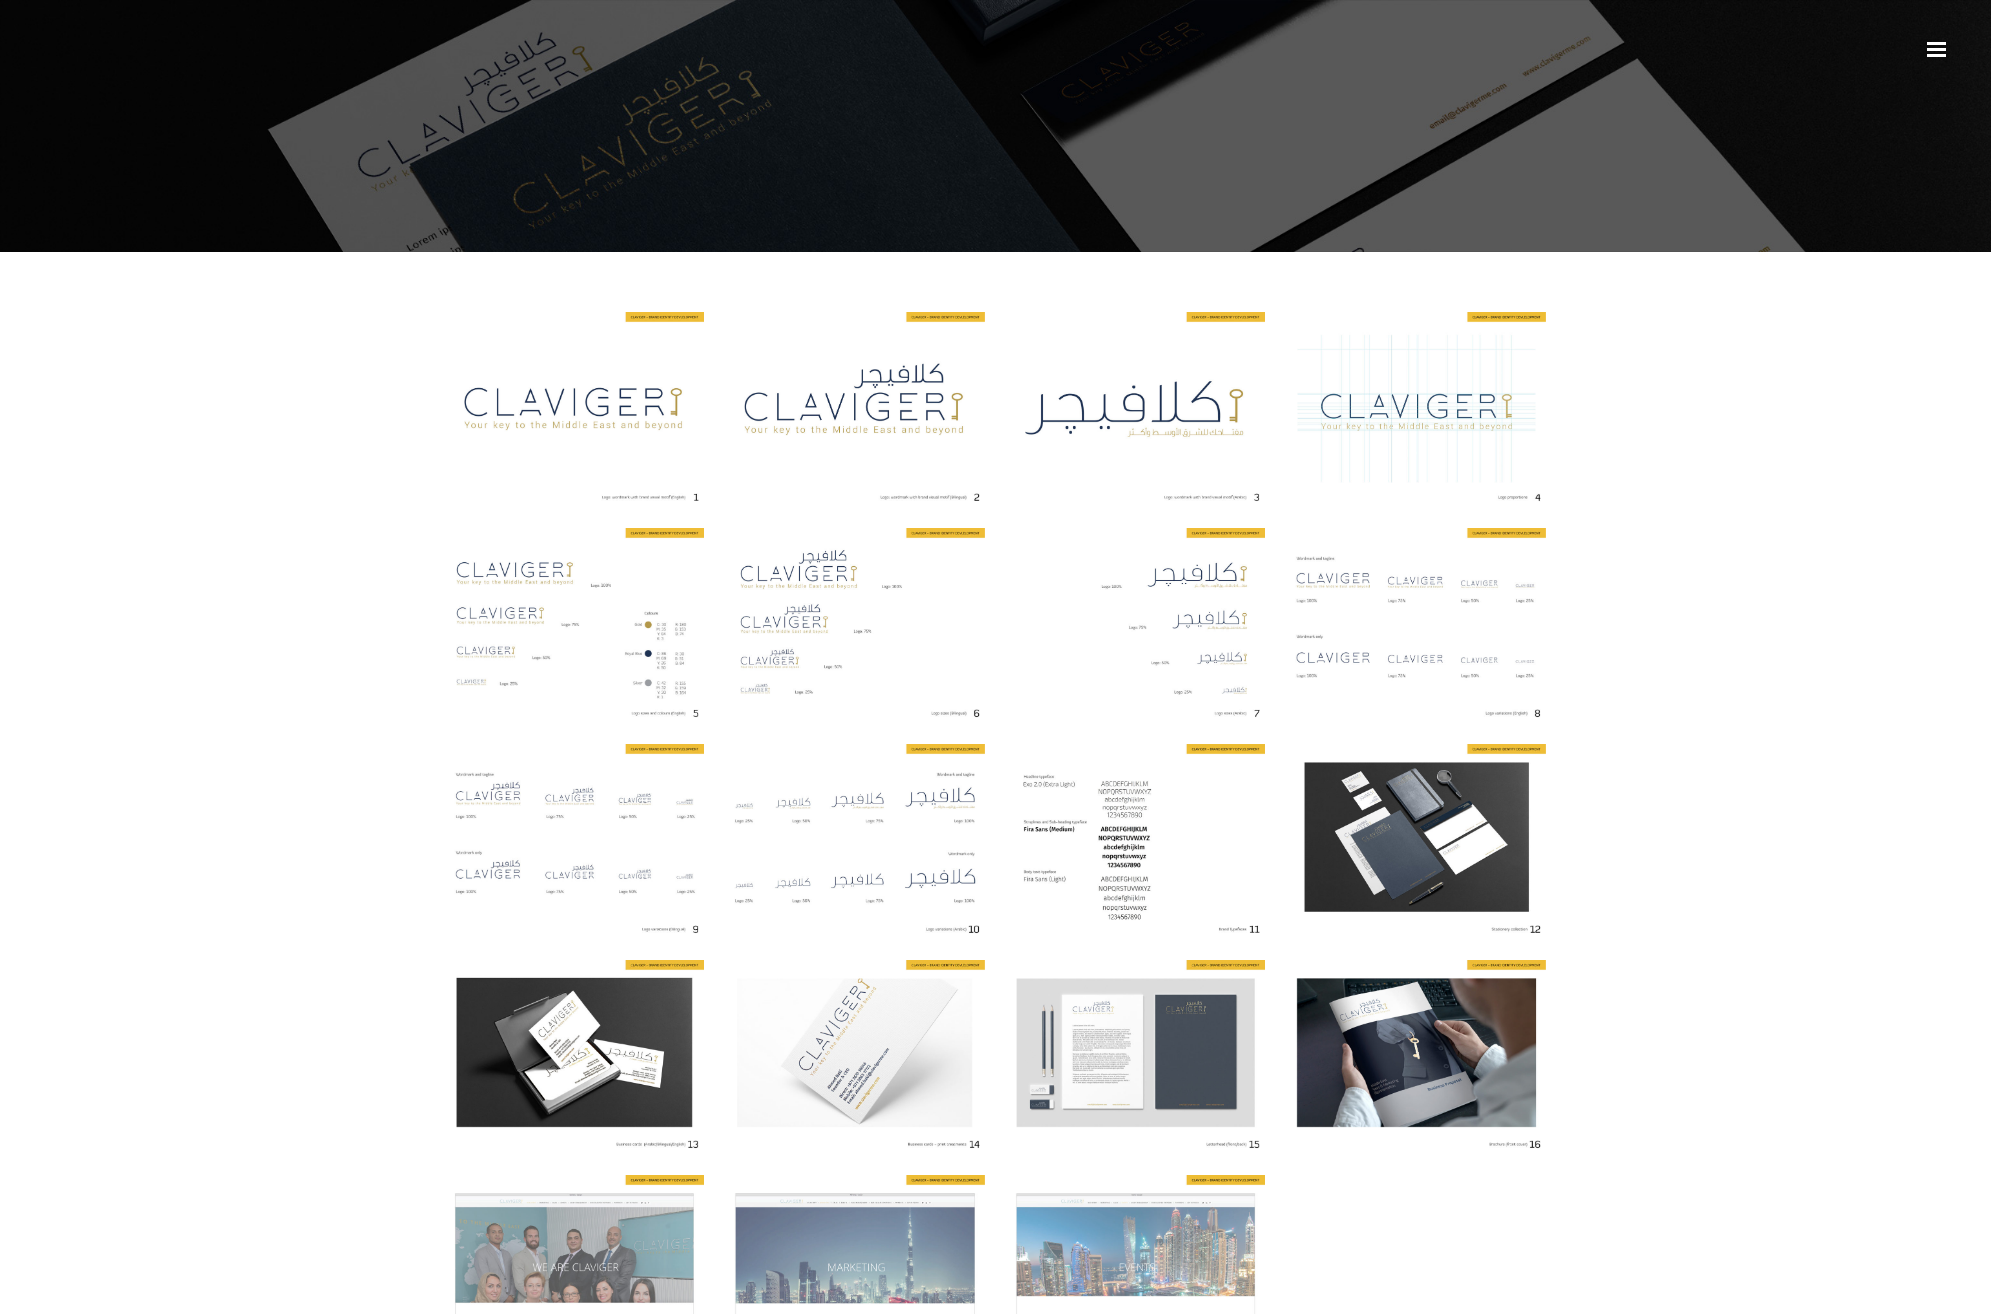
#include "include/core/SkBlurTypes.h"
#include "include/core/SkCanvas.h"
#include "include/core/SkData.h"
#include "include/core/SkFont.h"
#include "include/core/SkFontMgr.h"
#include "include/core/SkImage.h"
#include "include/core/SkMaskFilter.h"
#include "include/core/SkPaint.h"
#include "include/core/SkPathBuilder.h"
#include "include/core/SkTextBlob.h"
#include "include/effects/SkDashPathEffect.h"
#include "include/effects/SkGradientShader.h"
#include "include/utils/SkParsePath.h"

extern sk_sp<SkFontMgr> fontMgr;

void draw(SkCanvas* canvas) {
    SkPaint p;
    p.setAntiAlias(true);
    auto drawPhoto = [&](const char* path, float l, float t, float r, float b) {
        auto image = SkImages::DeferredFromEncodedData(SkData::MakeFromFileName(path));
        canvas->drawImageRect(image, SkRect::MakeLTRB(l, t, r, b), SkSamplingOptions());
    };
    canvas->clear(0xFFFFFFFF);
    drawPhoto("media/1.png", 0, 0, 1991, 252);
    drawPhoto("media/2.png", 464, 312, 704, 501);
    drawPhoto("media/3.png", 744, 312, 985, 501);
    drawPhoto("media/4.png", 1025, 312, 1265, 502);
    drawPhoto("media/5.png", 1297, 312, 1546, 502);
    drawPhoto("media/6.png", 456, 528, 704, 718);
    drawPhoto("media/7.png", 740, 528, 985, 718);
    drawPhoto("media/8.png", 1100, 528, 1265, 718);
    drawPhoto("media/9.png", 1295, 528, 1546, 718);
    drawPhoto("media/10.png", 454, 744, 704, 934);
    drawPhoto("media/11.png", 734, 744, 985, 934);
    drawPhoto("media/12.png", 1023, 744, 1265, 933);
    drawPhoto("media/13.png", 1303, 744, 1546, 933);
    drawPhoto("media/14.png", 456, 960, 704, 1149);
    drawPhoto("media/15.png", 737, 960, 985, 1149);
    drawPhoto("media/16.png", 1016, 960, 1265, 1149);
    drawPhoto("media/17.png", 1296, 960, 1546, 1149);
    drawPhoto("media/18.png", 454, 1175, 704, 1314);
    drawPhoto("media/19.png", 734, 1175, 985, 1314);
    drawPhoto("media/20.png", 1015, 1175, 1265, 1314);
    {
        const struct { float l, t, r, b; SkColor color; } items[] = {
            {1927, 48, 1946, 51, 0xFFFFFFFF},
            {1927, 42, 1946, 45, 0xFFFFFFFF},
            {1927, 54, 1946, 57, 0xFFFFFFFF},
        };
        for (auto [l, t, r, b, color] : items) {
            p.setColor(color);
            canvas->drawRect(SkRect::MakeLTRB(l, t, r, b), p);
        }
    }
}
